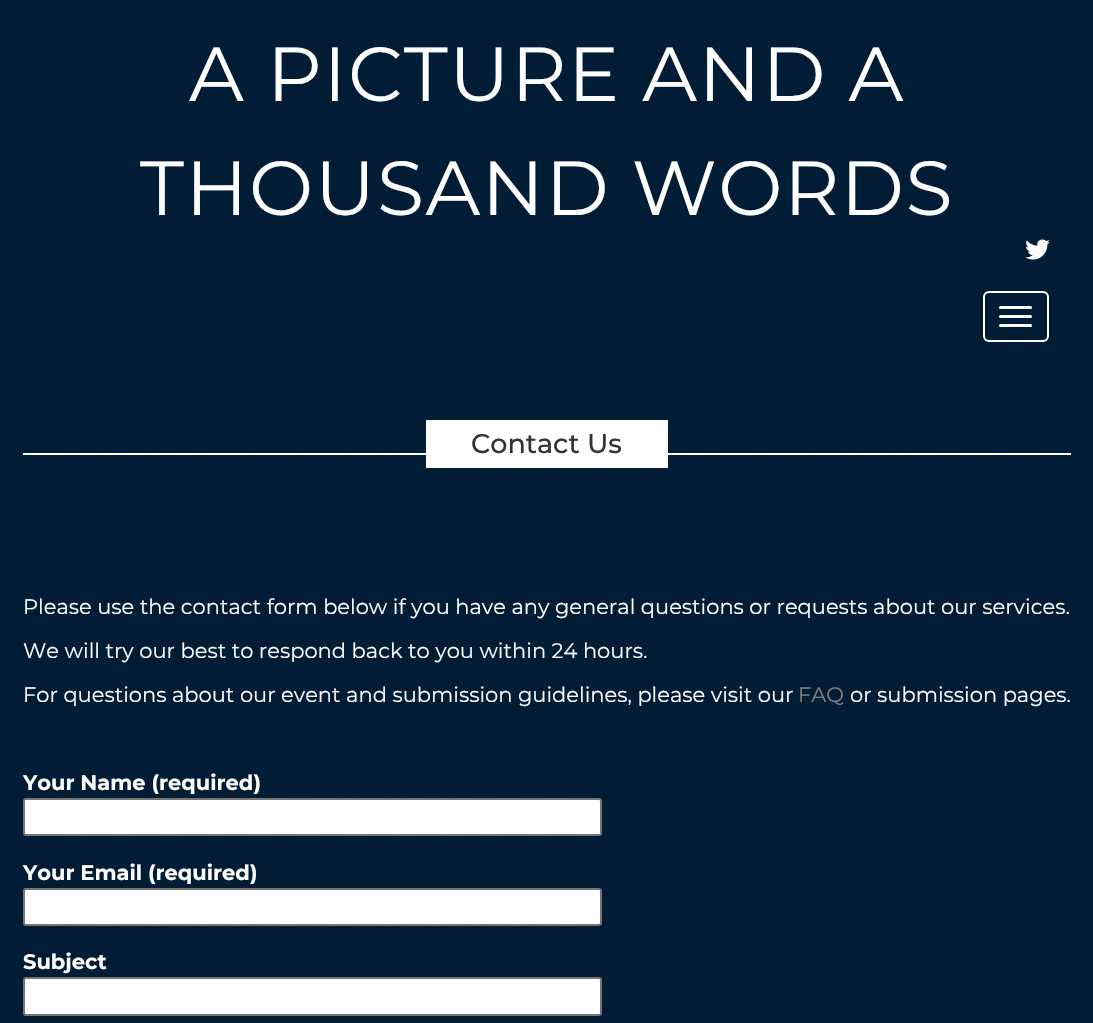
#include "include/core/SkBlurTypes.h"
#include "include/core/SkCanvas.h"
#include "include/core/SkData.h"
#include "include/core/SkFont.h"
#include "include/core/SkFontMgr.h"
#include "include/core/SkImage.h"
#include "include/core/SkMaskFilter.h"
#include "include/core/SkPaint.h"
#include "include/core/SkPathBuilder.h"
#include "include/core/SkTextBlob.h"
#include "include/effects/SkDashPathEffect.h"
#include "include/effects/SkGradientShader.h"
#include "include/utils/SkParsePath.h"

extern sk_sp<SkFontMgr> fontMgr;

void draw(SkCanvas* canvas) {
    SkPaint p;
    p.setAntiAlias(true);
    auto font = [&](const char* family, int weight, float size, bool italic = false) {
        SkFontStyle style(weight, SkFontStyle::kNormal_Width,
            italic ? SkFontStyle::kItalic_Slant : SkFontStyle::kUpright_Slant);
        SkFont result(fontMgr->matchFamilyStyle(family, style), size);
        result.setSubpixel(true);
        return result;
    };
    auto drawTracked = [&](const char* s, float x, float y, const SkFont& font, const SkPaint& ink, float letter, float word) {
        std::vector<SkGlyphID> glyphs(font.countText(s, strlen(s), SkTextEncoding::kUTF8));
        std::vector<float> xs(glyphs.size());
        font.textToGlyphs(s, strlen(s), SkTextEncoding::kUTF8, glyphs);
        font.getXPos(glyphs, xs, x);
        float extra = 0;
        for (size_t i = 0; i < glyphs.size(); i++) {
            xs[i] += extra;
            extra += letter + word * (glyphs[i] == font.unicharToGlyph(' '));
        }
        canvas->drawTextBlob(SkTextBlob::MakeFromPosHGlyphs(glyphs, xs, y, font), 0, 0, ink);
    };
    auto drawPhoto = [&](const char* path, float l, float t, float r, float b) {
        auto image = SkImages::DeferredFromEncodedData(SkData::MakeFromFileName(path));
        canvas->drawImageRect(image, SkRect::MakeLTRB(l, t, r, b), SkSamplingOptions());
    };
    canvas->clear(0xFF021F3B);
    drawPhoto("media/1.png", 0, 0, 1093, 1023);
    auto font1 = font("Montserrat", 400, 76.5f);
    p.setColor(0xFFFFFFFF);
    drawTracked("A PICTURE AND A", 189, 101, font1, p, 1.5f, 0);
    drawTracked("THOUSAND WORDS", 140, 215, font1, p, 1.5f, 0);
    drawPhoto("media/2.png", 1025, 239, 1050, 260);
    p.setStyle(SkPaint::kStroke_Style);
    p.setStrokeWidth(2);
    canvas->drawRoundRect(SkRect::MakeLTRB(984, 292, 1048, 341), 5, 5, p);
    p.setStyle(SkPaint::kFill_Style);
    canvas->drawRoundRect(SkRect::MakeLTRB(999, 306, 1032, 309), 1.5f, 1.5f, p);
    canvas->drawRoundRect(SkRect::MakeLTRB(999, 315, 1032, 318), 1.5f, 1.5f, p);
    canvas->drawRoundRect(SkRect::MakeLTRB(999, 324, 1032, 327), 1.5f, 1.5f, p);
    canvas->drawRect(SkRect::MakeLTRB(23, 453, 1071, 455), p);
    canvas->drawRect(SkRect::MakeLTRB(426, 420, 668, 468), p);
    auto font2 = font("Montserrat", 500, 27);
    p.setColor(0xFF333333);
    canvas->drawString("Contact Us", 471, 453, font2, p);
    auto font3 = font("Montserrat", 400, 21);
    p.setColor(0xFFFFFFFF);
    {
        const struct { const char* s; float x, y; } items[] = {
            {"Please use the contact form below if you have any general questions or requests about our services.", 23, 614},
            {"We will try our best to respond back to you within 24 hours.", 23, 658},
            {"For questions about our event and submission guidelines, please visit our", 23, 702},
        };
        for (auto [s, x, y] : items) {
            canvas->drawString(s, x, y, font3, p);
        }
    }
    p.setColor(0xFF808080);
    canvas->drawString("FAQ", 798, 702, font3, p);
    p.setColor(0xFFFFFFFF);
    canvas->drawString("or submission pages.", 850, 702, font3, p);
    auto font4 = font("Montserrat", 700, 21);
    canvas->drawString("Your Name (required)", 23, 790, font4, p);
    canvas->drawRoundRect(SkRect::MakeLTRB(24, 799, 601, 835), 2, 2, p);
    p.setStyle(SkPaint::kStroke_Style);
    p.setColor(0xFF767676);
    canvas->drawRoundRect(SkRect::MakeLTRB(24, 799, 601, 835), 2, 2, p);
    p.setStyle(SkPaint::kFill_Style);
    p.setColor(0xFFFFFFFF);
    canvas->drawString("Your Email (required)", 23, 880, font4, p);
    canvas->drawRoundRect(SkRect::MakeLTRB(24, 889, 601, 925), 2, 2, p);
    p.setStyle(SkPaint::kStroke_Style);
    p.setColor(0xFF767676);
    canvas->drawRoundRect(SkRect::MakeLTRB(24, 889, 601, 925), 2, 2, p);
    p.setStyle(SkPaint::kFill_Style);
    p.setColor(0xFFFFFFFF);
    canvas->drawString("Subject", 23, 969, font4, p);
    canvas->drawRoundRect(SkRect::MakeLTRB(24, 978, 601, 1015), 2, 2, p);
    p.setStyle(SkPaint::kStroke_Style);
    p.setColor(0xFF767676);
    canvas->drawRoundRect(SkRect::MakeLTRB(24, 978, 601, 1015), 2, 2, p);
}
